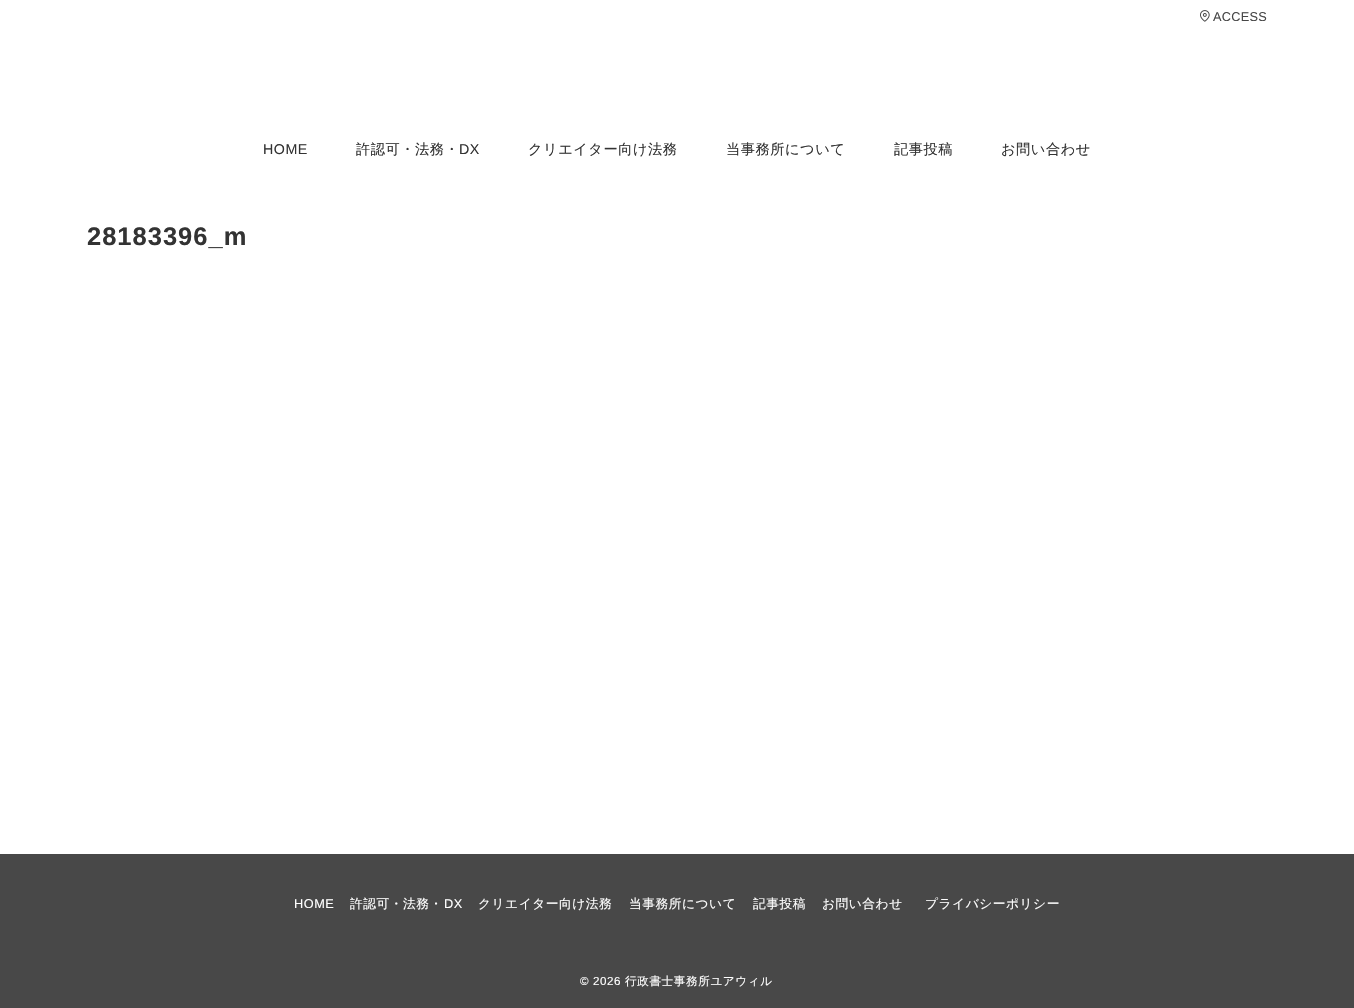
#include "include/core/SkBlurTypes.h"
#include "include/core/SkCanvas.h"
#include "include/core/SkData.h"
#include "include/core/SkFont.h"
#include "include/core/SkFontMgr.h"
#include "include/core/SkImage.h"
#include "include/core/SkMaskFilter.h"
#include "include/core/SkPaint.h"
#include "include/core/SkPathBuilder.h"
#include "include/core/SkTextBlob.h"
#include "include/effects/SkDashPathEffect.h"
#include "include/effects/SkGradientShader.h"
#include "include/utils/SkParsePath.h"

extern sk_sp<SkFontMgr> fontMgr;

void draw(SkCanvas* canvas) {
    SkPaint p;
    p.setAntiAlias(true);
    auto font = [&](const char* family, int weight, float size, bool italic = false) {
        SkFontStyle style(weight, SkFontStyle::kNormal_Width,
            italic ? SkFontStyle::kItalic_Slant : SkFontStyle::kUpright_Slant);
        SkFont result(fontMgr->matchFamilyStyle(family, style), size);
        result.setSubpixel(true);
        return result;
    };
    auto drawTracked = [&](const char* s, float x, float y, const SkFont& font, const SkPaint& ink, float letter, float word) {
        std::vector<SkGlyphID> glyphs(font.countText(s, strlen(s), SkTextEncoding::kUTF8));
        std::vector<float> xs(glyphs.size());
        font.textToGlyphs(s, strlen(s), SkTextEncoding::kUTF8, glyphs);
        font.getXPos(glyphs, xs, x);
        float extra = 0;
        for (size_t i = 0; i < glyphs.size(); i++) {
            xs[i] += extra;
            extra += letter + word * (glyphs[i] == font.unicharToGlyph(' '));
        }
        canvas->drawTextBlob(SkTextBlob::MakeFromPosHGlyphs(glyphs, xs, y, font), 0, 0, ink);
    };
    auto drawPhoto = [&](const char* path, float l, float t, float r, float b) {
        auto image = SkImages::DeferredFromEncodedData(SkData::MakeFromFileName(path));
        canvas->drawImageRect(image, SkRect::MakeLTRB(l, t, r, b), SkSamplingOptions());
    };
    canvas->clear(0xFFFFFFFF);
    drawPhoto("media/1.png", 1200, 10, 1210, 22);
    auto font1 = font("Liberation Sans", 400, 12.75f);
    p.setColor(0xFF474747);
    drawTracked("ACCESS", 1213, 21, font1, p, 0.25f, 0);
    auto font2 = font("Liberation Sans", 400, 14.25f);
    p.setColor(0xFF333333);
    drawTracked("HOME", 263, 154, font2, p, 0.5f, 0);
    auto font3 = font("WenQuanYi Zen Hei", 500, 14.25f);
    drawTracked("許認可・法務・", 356, 154, font3, p, 0.5f, 0);
    drawTracked("DX", 459, 154, font2, p, 0.5f, 0);
    {
        const struct { const char* s; float x, y; } items[] = {
            {"クリエイター向け法務", 528, 154},
            {"当事務所について", 726, 154},
            {"記事投稿", 894, 154},
            {"お問い合わせ", 1001, 154},
        };
        for (auto [s, x, y] : items) {
            drawTracked(s, x, y, font3, p, 0.5f, 0);
        }
    }
    auto font4 = font("Liberation Sans", 700, 25.5f);
    drawTracked("28183396_m", 87, 245, font4, p, 1, 0);
    p.setColor(0xFF484848);
    canvas->drawRect(SkRect::MakeLTRB(0, 854, 1354, 1008), p);
    p.setColor(0xFFFFFFFF);
    drawTracked("HOME", 294, 908, font1, p, 0.5f, 0);
    auto font5 = font("WenQuanYi Zen Hei", 500, 12.75f);
    drawTracked("許認可・法務・", 350, 908, font5, p, 0.5f, 0);
    drawTracked("DX", 444, 908, font1, p, 0.5f, 0);
    {
        const struct { const char* s; float x, y; } items[] = {
            {"クリエイター向け法務", 478, 908},
            {"当事務所について", 629, 908},
            {"記事投稿", 753, 908},
            {"お問い合わせ", 822, 908},
            {"プライバシーポリシー", 925, 908},
        };
        for (auto [s, x, y] : items) {
            drawTracked(s, x, y, font5, p, 0.5f, 0);
        }
    }
    auto font6 = font("Liberation Sans", 400, 11.6f);
    drawTracked("© 2026", 580, 985, font6, p, 0.6f, 0);
    auto font7 = font("WenQuanYi Zen Hei", 500, 11.6f);
    drawTracked("行政書士事務所ユアウィル", 625, 985, font7, p, 0.6f, 0);
}
